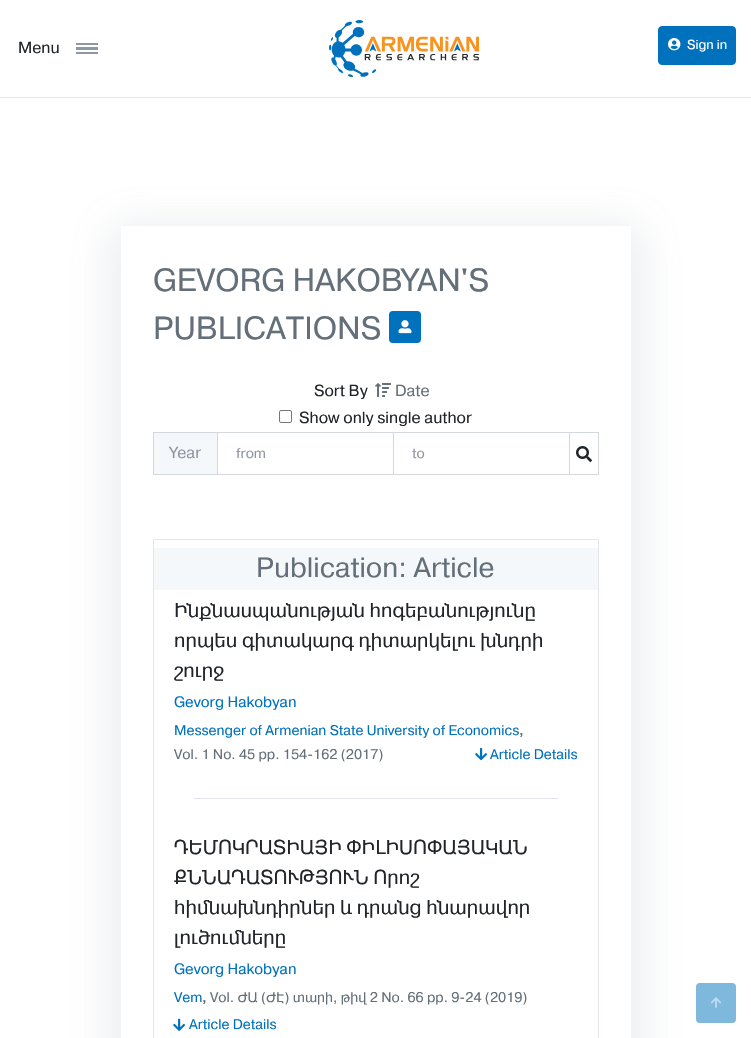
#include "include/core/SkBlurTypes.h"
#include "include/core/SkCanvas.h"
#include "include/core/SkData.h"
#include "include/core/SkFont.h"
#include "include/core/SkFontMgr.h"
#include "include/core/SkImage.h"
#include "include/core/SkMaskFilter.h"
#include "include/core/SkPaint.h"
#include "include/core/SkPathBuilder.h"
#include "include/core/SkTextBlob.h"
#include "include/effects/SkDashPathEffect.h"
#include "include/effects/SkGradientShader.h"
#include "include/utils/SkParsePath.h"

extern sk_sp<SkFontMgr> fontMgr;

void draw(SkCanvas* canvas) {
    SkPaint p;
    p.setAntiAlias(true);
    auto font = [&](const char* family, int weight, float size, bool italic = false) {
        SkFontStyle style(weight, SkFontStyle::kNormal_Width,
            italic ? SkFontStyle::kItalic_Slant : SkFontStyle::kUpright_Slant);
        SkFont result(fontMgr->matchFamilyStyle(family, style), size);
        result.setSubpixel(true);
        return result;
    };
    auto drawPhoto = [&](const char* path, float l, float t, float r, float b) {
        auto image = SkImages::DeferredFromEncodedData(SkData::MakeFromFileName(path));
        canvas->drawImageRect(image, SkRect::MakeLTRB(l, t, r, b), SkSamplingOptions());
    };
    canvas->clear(0xFFFFFFFF);
    p.setColor(0xFFE3E6F0);
    canvas->drawRect(SkRect::MakeLTRB(0, 97, 751, 98), p);
    auto font1 = font("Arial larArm", 400, 16);
    p.setColor(0xFF212529);
    canvas->drawString("Menu", 18, 53, font1, p);
    {
        const struct { float l, t, r, b; SkColor color; } items[] = {
            {76, 43, 98, 45, 0xFF8C98A4},
            {76, 47, 98, 50, 0xFF8C98A4},
            {76, 52, 98, 54, 0xFF8C98A4},
        };
        for (auto [l, t, r, b, color] : items) {
            p.setColor(color);
            canvas->drawRect(SkRect::MakeLTRB(l, t, r, b), p);
        }
    }
    drawPhoto("media/1.png", 329, 20, 479, 77);
    p.setColor(0xFF0071BC);
    canvas->drawRoundRect(SkRect::MakeLTRB(658.5f, 26.5f, 735.5f, 64.5f), 3.5f, 3.5f, p);
    p.setStyle(SkPaint::kStroke_Style);
    p.setStrokeWidth(1);
    canvas->drawRoundRect(SkRect::MakeLTRB(658.5f, 26.5f, 735.5f, 64.5f), 3.5f, 3.5f, p);
    drawPhoto("media/2.png", 668, 38, 681, 51);
    auto font2 = font("Arial larArm", 400, 13);
    p.setStyle(SkPaint::kFill_Style);
    p.setColor(0xFFFFFFFF);
    canvas->drawString("Sign in", 687, 49, font2, p);
    canvas->save();
    canvas->clipPath(SkPathBuilder(SkPathFillType::kEvenOdd).moveTo(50, 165).lineTo(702, 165).lineTo(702, 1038).lineTo(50, 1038).close().moveTo(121, 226).lineTo(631, 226).lineTo(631, 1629).lineTo(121, 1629).close().detach(), true);
    p.setColor(0x2E8C98A4);
    p.setMaskFilter(SkMaskFilter::MakeBlur(kNormal_SkBlurStyle, 20));
    canvas->drawRect(SkRect::MakeLTRB(111, 226, 641, 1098), p);
    p.setMaskFilter(nullptr);
    canvas->restore();
    auto font3 = font("Arial larArm", 400, 32);
    p.setColor(0xFF646F79);
    canvas->drawString("GEVORG HAKOBYAN'S", 153, 291, font3, p);
    canvas->drawString("PUBLICATIONS", 153, 339, font3, p);
    p.setColor(0xFF0071BC);
    canvas->drawRoundRect(SkRect::MakeLTRB(389, 311, 421, 343), 4, 4, p);
    drawPhoto("media/3.png", 398, 320, 412, 334);
    p.setColor(0xFF212529);
    canvas->drawString("Sort By", 314, 396, font1, p);
    drawPhoto("media/4.png", 375, 383, 391, 397);
    p.setColor(0xFF646F79);
    canvas->drawString("Date", 395, 396, font1, p);
    p.setStyle(SkPaint::kStroke_Style);
    p.setColor(0xFF767676);
    canvas->drawRoundRect(SkRect::MakeLTRB(279.5f, 410.5f, 291.5f, 422.5f), 1.5f, 1.5f, p);
    p.setStyle(SkPaint::kFill_Style);
    p.setColor(0xFF212529);
    canvas->drawString("Show only single author", 299, 423, font1, p);
    p.setColor(0xFFF5F8FB);
    canvas->drawRect(SkRect::MakeLTRB(153.5f, 432.5f, 217.5f, 474.5f), p);
    p.setStyle(SkPaint::kStroke_Style);
    p.setColor(0xFFD4D7DD);
    canvas->drawRect(SkRect::MakeLTRB(153.5f, 432.5f, 217.5f, 474.5f), p);
    p.setStyle(SkPaint::kFill_Style);
    p.setColor(0xFF8F95A0);
    canvas->drawString("Year", 170, 458, font1, p);
    p.setStyle(SkPaint::kStroke_Style);
    p.setColor(0xFFD4D7DD);
    canvas->drawRoundRect(SkRect::MakeLTRB(217.5f, 432.5f, 393.5f, 474.5f), 1.5f, 1.5f, p);
    auto font4 = font("Arial larArm", 400, 14);
    p.setStyle(SkPaint::kFill_Style);
    p.setColor(0xFF8F95A0);
    canvas->drawString("from", 236, 458, font4, p);
    p.setStyle(SkPaint::kStroke_Style);
    p.setColor(0xFFD4D7DD);
    canvas->drawRect(SkRect::MakeLTRB(393.5f, 432.5f, 569.5f, 474.5f), p);
    p.setStyle(SkPaint::kFill_Style);
    p.setColor(0xFF8F95A0);
    canvas->drawString("to", 412, 458, font4, p);
    p.setStyle(SkPaint::kStroke_Style);
    p.setColor(0xFFD4D7DD);
    canvas->drawRect(SkRect::MakeLTRB(569.5f, 432.5f, 598.5f, 474.5f), p);
    drawPhoto("media/5.png", 576, 446, 592, 462);
    p.setColor(0xFFE3E6F0);
    canvas->drawRect(SkRect::MakeLTRB(153.5f, 539.5f, 598.5f, 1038.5f), p);
    p.setStyle(SkPaint::kFill_Style);
    p.setColor(0xFFF5F8FB);
    canvas->drawRect(SkRect::MakeLTRB(154, 548, 598, 590), p);
    auto font5 = font("Arial larArm", 400, 28);
    p.setColor(0xFF646F79);
    canvas->drawString("Publication: Article", 256, 577, font5, p);
    auto font6 = font("Arial larArm", 400, 20);
    p.setColor(0xFF212529);
    {
        const struct { const char* s; float x, y; } items[] = {
            {"Ինքնասպանության հոգեբանությունը", 174, 617},
            {"որպես գիտակարգ դիտարկելու խնդրի", 174, 647},
            {"շուրջ", 174, 677},
        };
        for (auto [s, x, y] : items) {
            canvas->drawString(s, x, y, font6, p);
        }
    }
    auto font7 = font("Arial larArm", 400, 15);
    p.setColor(0xFF0071BC);
    canvas->drawString("Gevorg Hakobyan", 174, 707, font7, p);
    canvas->drawString("Messenger of Armenian State University of Economics", 174, 735, font4, p);
    auto font8 = font("Arial larArm", 700, 14);
    p.setColor(0xFF646F79);
    canvas->drawString(",", 519, 735, font8, p);
    canvas->drawString("Vol. 1 No. 45 pp. 154-162 (2017)", 174, 759, font4, p);
    drawPhoto("media/6.png", 475, 748, 487, 761);
    p.setColor(0xFF0071BC);
    canvas->drawString("Article Details", 490, 759, font4, p);
    p.setColor(0xFFE3E6F0);
    canvas->drawRect(SkRect::MakeLTRB(194, 798, 558, 799), p);
    p.setColor(0xFF212529);
    {
        const struct { const char* s; float x, y; } items[] = {
            {"ԴԵՄՈԿՐԱՏԻԱՅԻ ՓԻԼԻՍՈՓԱՅԱԿԱՆ", 174, 854},
            {"ՔՆՆԱԴԱՏՈՒԹՅՈՒՆ Որոշ", 174, 884},
            {"հիմնախնդիրներ և դրանց հնարավոր", 174, 914},
            {"լուծումները", 174, 944},
        };
        for (auto [s, x, y] : items) {
            canvas->drawString(s, x, y, font6, p);
        }
    }
    p.setColor(0xFF0071BC);
    canvas->drawString("Gevorg Hakobyan", 174, 974, font7, p);
    canvas->drawString("Vem", 174, 1002, font4, p);
    p.setColor(0xFF646F79);
    canvas->drawString(",", 202, 1002, font8, p);
    canvas->drawString("Vol. ԺԱ (ԺԷ) տարի, թիվ 2 No. 66 pp. 9-24 (2019)", 210, 1002, font4, p);
    drawPhoto("media/7.png", 173, 1018, 185, 1031);
    p.setColor(0xFF0071BC);
    canvas->drawString("Article Details", 189, 1029, font4, p);
    p.setColor(0xFF7FB8DD);
    canvas->drawRoundRect(SkRect::MakeLTRB(696, 983, 736, 1023), 4, 4, p);
    drawPhoto("media/8.png", 711, 997, 721, 1008);
}
